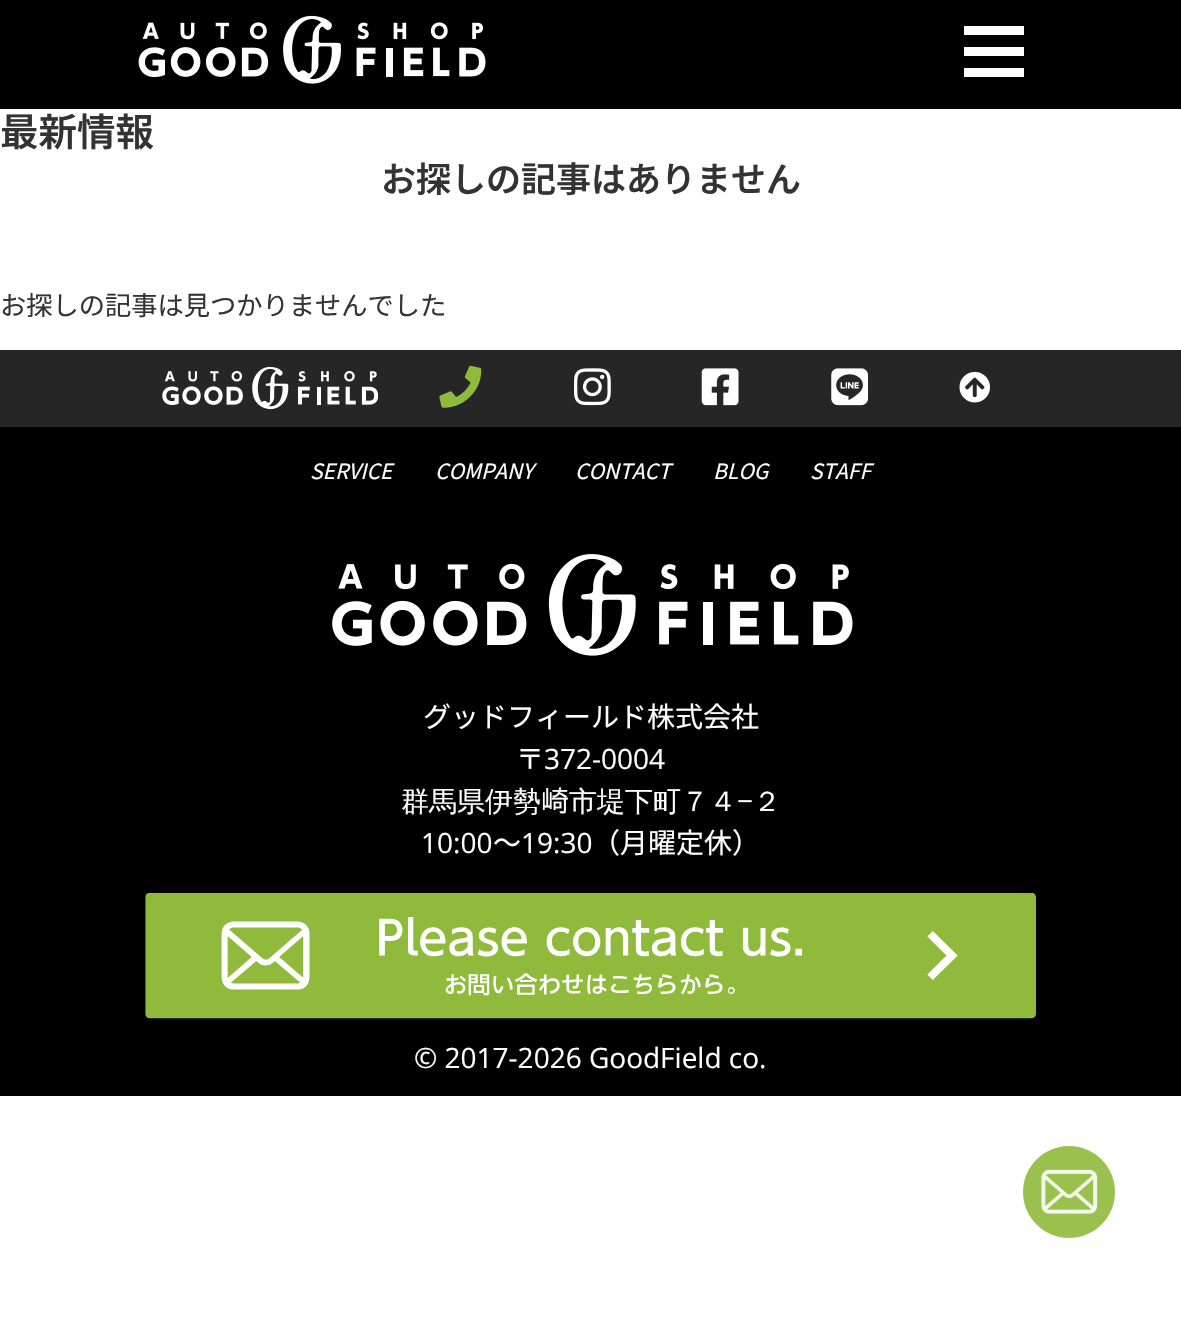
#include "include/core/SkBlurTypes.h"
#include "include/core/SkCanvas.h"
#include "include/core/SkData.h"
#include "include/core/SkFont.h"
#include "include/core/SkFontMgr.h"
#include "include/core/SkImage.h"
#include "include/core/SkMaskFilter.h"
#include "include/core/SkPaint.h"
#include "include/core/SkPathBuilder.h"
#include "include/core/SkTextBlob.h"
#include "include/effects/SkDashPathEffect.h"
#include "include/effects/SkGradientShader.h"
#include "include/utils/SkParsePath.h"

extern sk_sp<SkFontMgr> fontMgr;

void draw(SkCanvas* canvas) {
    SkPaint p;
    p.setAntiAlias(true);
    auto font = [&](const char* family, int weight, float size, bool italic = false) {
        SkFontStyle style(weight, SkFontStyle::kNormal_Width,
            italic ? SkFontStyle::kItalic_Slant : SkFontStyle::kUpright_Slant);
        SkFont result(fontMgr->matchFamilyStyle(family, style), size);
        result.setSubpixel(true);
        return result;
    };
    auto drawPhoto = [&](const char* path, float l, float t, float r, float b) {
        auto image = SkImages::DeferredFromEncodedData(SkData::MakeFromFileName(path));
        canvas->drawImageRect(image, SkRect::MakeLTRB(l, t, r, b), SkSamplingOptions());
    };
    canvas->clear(0xFFFFFFFF);
    p.setColor(0xFF000000);
    canvas->drawRect(SkRect::MakeLTRB(0, 0, 1181, 109), p);
    drawPhoto("media/1.png", 138, 15, 486, 84);
    {
        const struct { float l, t, r, b; SkColor color; } items[] = {
            {964, 68, 1024, 77, 0xFFFFFFFF},
            {964, 47, 1024, 56, 0xFFFFFFFF},
            {964, 26, 1024, 35, 0xFFFFFFFF},
        };
        for (auto [l, t, r, b, color] : items) {
            p.setColor(color);
            canvas->drawRect(SkRect::MakeLTRB(l, t, r, b), p);
        }
    }
    auto font1 = font("Noto Sans JP", 600, 38.5f);
    p.setColor(0xFF333333);
    canvas->drawString("最新情報", 0, 146, font1, p);
    auto font2 = font("Noto Sans JP", 600, 35);
    canvas->drawString("お探しの記事はありません", 381, 192, font2, p);
    auto font3 = font("Noto Sans JP", 400, 26.25f);
    canvas->drawString("お探しの記事は見つかりませんでした", 0, 315, font3, p);
    p.setColor(0xFF262626);
    canvas->drawRect(SkRect::MakeLTRB(0, 350, 1181, 427), p);
    drawPhoto("media/2.png", 162, 366, 378, 410);
    drawPhoto("media/3.png", 439, 365, 482, 408);
    drawPhoto("media/4.png", 574, 368, 611, 406);
    drawPhoto("media/5.png", 701, 368, 739, 406);
    drawPhoto("media/6.png", 831, 368, 868, 406);
    drawPhoto("media/7.png", 959, 371, 990, 403);
    p.setColor(0xFF000000);
    canvas->drawRect(SkRect::MakeLTRB(0, 427, 1181, 1096), p);
    auto font4 = font("Noto Sans JP", 400, 21, true);
    p.setColor(0xFFFFFFFF);
    {
        const struct { const char* s; float x, y; } items[] = {
            {"SERVICE", 310, 479},
            {"COMPANY", 435, 479},
            {"CONTACT", 575, 479},
            {"BLOG", 713, 479},
            {"STAFF", 810, 479},
        };
        for (auto [s, x, y] : items) {
            canvas->drawString(s, x, y, font4, p);
        }
    }
    drawPhoto("media/8.png", 332, 554, 853, 656);
    auto font5 = font("Noto Sans JP", 400, 28);
    canvas->drawString("グッドフィールド株式会社", 423, 727, font5, p);
    canvas->drawString("〒", 516, 769, font5, p);
    auto font6 = font("Open Sans", 400, 28);
    canvas->drawString("372-0004", 544, 769, font6, p);
    auto font7 = font("WenQuanYi Zen Hei", 500, 28);
    canvas->drawString("群馬県伊勢", 401, 811, font7, p);
    canvas->drawString("崎", 541, 811, font5, p);
    canvas->drawString("市堤下町７４", 569, 811, font7, p);
    canvas->drawString("−", 737, 811, font6, p);
    canvas->drawString("２", 753, 811, font7, p);
    canvas->drawString("10:00", 421, 853, font6, p);
    canvas->drawString("～", 493, 853, font5, p);
    canvas->drawString("19:30", 521, 853, font6, p);
    canvas->drawString("（月曜定休）", 592, 853, font5, p);
    drawPhoto("media/9.png", 145, 893, 1036, 1019);
    canvas->drawString("© 2017-2026 GoodField co.", 414, 1068, font6, p);
    drawPhoto("media/10.png", 1023, 1146, 1115, 1238);
}
